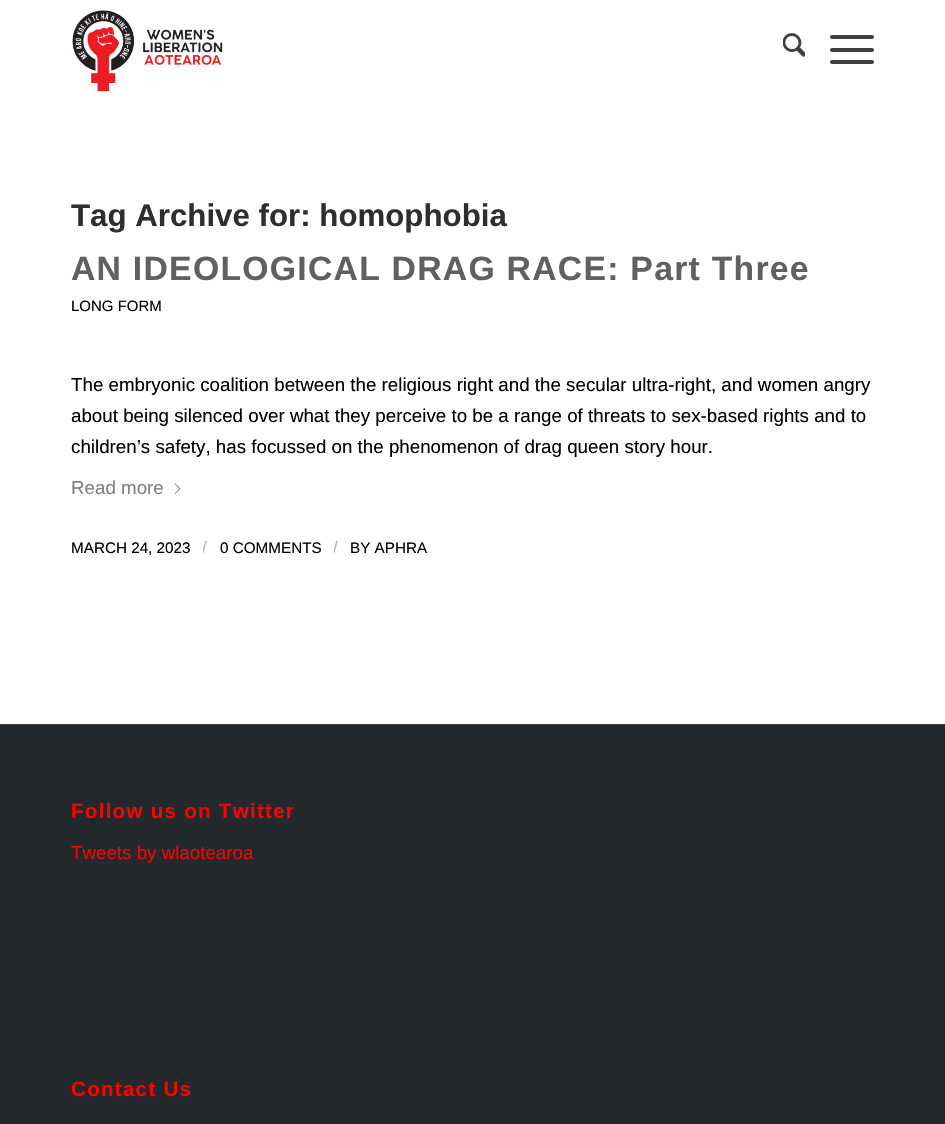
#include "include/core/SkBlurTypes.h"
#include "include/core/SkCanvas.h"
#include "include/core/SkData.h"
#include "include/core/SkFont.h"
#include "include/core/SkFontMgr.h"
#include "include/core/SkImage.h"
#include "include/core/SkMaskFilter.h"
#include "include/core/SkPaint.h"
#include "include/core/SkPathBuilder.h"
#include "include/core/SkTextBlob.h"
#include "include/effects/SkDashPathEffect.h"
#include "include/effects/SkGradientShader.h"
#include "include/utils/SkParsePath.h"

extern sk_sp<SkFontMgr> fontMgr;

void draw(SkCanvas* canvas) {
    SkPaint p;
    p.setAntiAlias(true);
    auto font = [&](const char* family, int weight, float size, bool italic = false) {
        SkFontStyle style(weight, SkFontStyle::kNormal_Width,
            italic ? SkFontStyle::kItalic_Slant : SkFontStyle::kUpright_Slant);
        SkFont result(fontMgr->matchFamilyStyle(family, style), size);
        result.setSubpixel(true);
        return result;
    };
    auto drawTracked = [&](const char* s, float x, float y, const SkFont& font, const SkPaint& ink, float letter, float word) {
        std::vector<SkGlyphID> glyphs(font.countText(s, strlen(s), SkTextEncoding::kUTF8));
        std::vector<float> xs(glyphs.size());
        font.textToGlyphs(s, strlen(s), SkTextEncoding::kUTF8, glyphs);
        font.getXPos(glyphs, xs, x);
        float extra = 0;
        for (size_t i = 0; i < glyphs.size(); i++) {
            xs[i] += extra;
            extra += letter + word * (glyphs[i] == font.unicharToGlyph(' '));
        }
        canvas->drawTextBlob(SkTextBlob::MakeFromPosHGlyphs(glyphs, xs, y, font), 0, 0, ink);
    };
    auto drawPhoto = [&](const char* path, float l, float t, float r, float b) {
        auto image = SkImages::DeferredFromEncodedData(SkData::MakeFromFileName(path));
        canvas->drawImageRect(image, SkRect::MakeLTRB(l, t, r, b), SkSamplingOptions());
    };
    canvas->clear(0xFFFFFFFF);
    drawPhoto("media/1.png", 72, 10, 223, 92);
    drawPhoto("media/2.png", 783, 33, 805, 57);
    p.setColor(0xFF404040);
    canvas->drawRoundRect(SkRect::MakeLTRB(830, 48, 874, 52), 2, 2, p);
    canvas->drawRoundRect(SkRect::MakeLTRB(830, 35, 874, 39), 2, 2, p);
    canvas->drawRoundRect(SkRect::MakeLTRB(830, 60, 874, 64), 2, 2, p);
    auto font1 = font("Liberation Sans", 700, 31.25f);
    p.setColor(0xFF2E2E2E);
    canvas->drawString("Tag Archive for: homophobia", 71, 226, font1, p);
    auto font2 = font("Liberation Sans", 700, 33.75f);
    p.setColor(0xFF606060);
    drawTracked("AN IDEOLOGICAL DRAG RACE: Part Three", 71, 280, font2, p, 1.25f, 0);
    auto font3 = font("Liberation Sans", 400, 15);
    p.setColor(0xFF000000);
    canvas->drawString("LONG FORM", 71, 311, font3, p);
    auto font4 = font("Liberation Sans", 400, 18.75f);
    {
        const struct { const char* s; float x, y; } items[] = {
            {"The embryonic coalition between the religious right and the secular ultra-right, and women angry", 71, 391},
            {"about being silenced over what they perceive to be a range of threats to sex-based rights and to", 71, 422},
            {"children’s safety, has focussed on the phenomenon of drag queen story hour.", 71, 453},
        };
        for (auto [s, x, y] : items) {
            canvas->drawString(s, x, y, font4, p);
        }
    }
    p.setColor(0xFF808080);
    canvas->drawString("Read more", 71, 494, font4, p);
    drawPhoto("media/3.png", 174, 483, 181, 494);
    auto font5 = font("Liberation Sans", 400, 15.25f);
    p.setColor(0xFF000000);
    canvas->drawString("MARCH 24, 2023", 71, 553, font5, p);
    canvas->save();
    canvas->clipRect(SkRect::MakeLTRB(203, 533, 208, 564));
    auto font6 = font("Liberation Sans", 400, 17);
    p.setColor(0xFFB3B3B3);
    canvas->drawString("/", 202, 553, font6, p);
    canvas->restore();
    p.setColor(0xFF000000);
    canvas->drawString("0 COMMENTS", 220, 553, font5, p);
    canvas->save();
    canvas->clipRect(SkRect::MakeLTRB(334, 533, 338, 564));
    p.setColor(0xFFB3B3B3);
    canvas->drawString("/", 333, 553, font6, p);
    canvas->restore();
    p.setColor(0xFF000000);
    canvas->drawString("BY APHRA", 350, 553, font5, p);
    p.setColor(0xFF22282C);
    canvas->drawRect(SkRect::MakeLTRB(0, 725, 945, 1124), p);
    p.setColor(0xFF404040);
    canvas->drawRect(SkRect::MakeLTRB(0, 724, 945, 725), p);
    auto font7 = font("Liberation Sans", 700, 20.6f);
    p.setColor(0xFFFF0000);
    drawTracked("Follow us on Twitter", 71, 818, font7, p, 1.25f, 0);
    canvas->drawString("Tweets by wlaotearoa", 71, 859, font4, p);
    drawTracked("Contact Us", 71, 1096, font7, p, 1.25f, 0);
}
